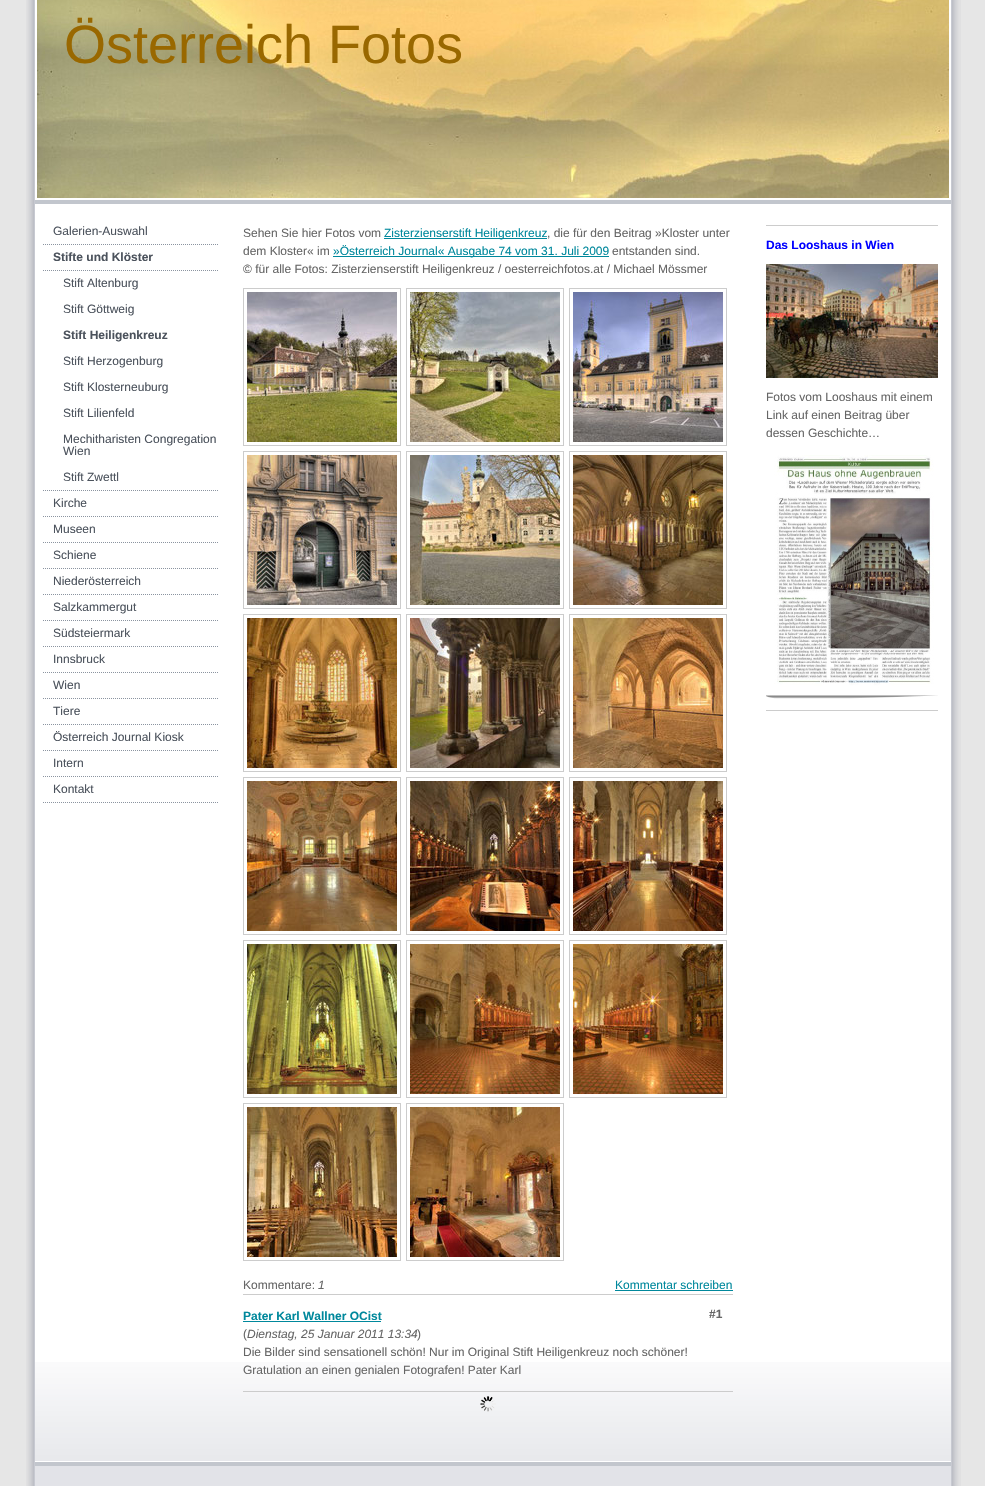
#include "include/core/SkBlurTypes.h"
#include "include/core/SkCanvas.h"
#include "include/core/SkData.h"
#include "include/core/SkFont.h"
#include "include/core/SkFontMgr.h"
#include "include/core/SkImage.h"
#include "include/core/SkMaskFilter.h"
#include "include/core/SkPaint.h"
#include "include/core/SkPathBuilder.h"
#include "include/core/SkTextBlob.h"
#include "include/effects/SkDashPathEffect.h"
#include "include/effects/SkGradientShader.h"
#include "include/utils/SkParsePath.h"

extern sk_sp<SkFontMgr> fontMgr;

void draw(SkCanvas* canvas) {
    SkPaint p;
    p.setAntiAlias(true);
    auto font = [&](const char* family, int weight, float size, bool italic = false) {
        SkFontStyle style(weight, SkFontStyle::kNormal_Width,
            italic ? SkFontStyle::kItalic_Slant : SkFontStyle::kUpright_Slant);
        SkFont result(fontMgr->matchFamilyStyle(family, style), size);
        result.setSubpixel(true);
        return result;
    };
    auto drawPhoto = [&](const char* path, float l, float t, float r, float b) {
        auto image = SkImages::DeferredFromEncodedData(SkData::MakeFromFileName(path));
        canvas->drawImageRect(image, SkRect::MakeLTRB(l, t, r, b), SkSamplingOptions());
    };
    canvas->clear(0xFFE6E6E6);
    drawPhoto("media/1.png", 26, 0, 961, 1486);
    p.setColor(0xFFC2C6CD);
    canvas->drawRect(SkRect::MakeLTRB(35, 200, 951, 204), p);
    drawPhoto("media/2.png", 37, 0, 949, 198);
    auto font1 = font("Liberation Sans", 400, 54);
    p.setColor(0xFF996800);
    canvas->drawString("Österreich Fotos", 64, 63, font1, p);
    drawPhoto("media/3.png", 35, 1362, 951, 1461);
    drawPhoto("media/4.png", 43, 244, 218, 245);
    auto font2 = font("Liberation Sans", 400, 12);
    p.setColor(0xFF4B525C);
    canvas->drawString("Galerien-Auswahl", 53, 235, font2, p);
    drawPhoto("media/4.png", 43, 270, 218, 271);
    auto font3 = font("Liberation Sans", 700, 12);
    canvas->drawString("Stifte und Klöster", 53, 261, font3, p);
    drawPhoto("media/4.png", 43, 490, 218, 491);
    canvas->drawString("Stift Altenburg", 63, 287, font2, p);
    canvas->drawString("Stift Göttweig", 63, 313, font2, p);
    canvas->drawString("Stift Heiligenkreuz", 63, 339, font3, p);
    {
        const struct { const char* s; float x, y; } items[] = {
            {"Stift Herzogenburg", 63, 365},
            {"Stift Klosterneuburg", 63, 391},
            {"Stift Lilienfeld", 63, 417},
            {"Mechitharisten Congregation", 63, 443},
            {"Wien", 63, 455},
            {"Stift Zwettl", 63, 481},
        };
        for (auto [s, x, y] : items) {
            canvas->drawString(s, x, y, font2, p);
        }
    }
    drawPhoto("media/4.png", 43, 516, 218, 517);
    canvas->drawString("Kirche", 53, 507, font2, p);
    drawPhoto("media/4.png", 43, 542, 218, 543);
    canvas->drawString("Museen", 53, 533, font2, p);
    drawPhoto("media/4.png", 43, 568, 218, 569);
    canvas->drawString("Schiene", 53, 559, font2, p);
    drawPhoto("media/4.png", 43, 594, 218, 595);
    canvas->drawString("Niederösterreich", 53, 585, font2, p);
    drawPhoto("media/4.png", 43, 620, 218, 621);
    canvas->drawString("Salzkammergut", 53, 611, font2, p);
    drawPhoto("media/4.png", 43, 646, 218, 647);
    canvas->drawString("Südsteiermark", 53, 637, font2, p);
    drawPhoto("media/4.png", 43, 672, 218, 673);
    canvas->drawString("Innsbruck", 53, 663, font2, p);
    drawPhoto("media/4.png", 43, 698, 218, 699);
    canvas->drawString("Wien", 53, 689, font2, p);
    drawPhoto("media/4.png", 43, 724, 218, 725);
    canvas->drawString("Tiere", 53, 715, font2, p);
    drawPhoto("media/4.png", 43, 750, 218, 751);
    canvas->drawString("Österreich Journal Kiosk", 53, 741, font2, p);
    drawPhoto("media/4.png", 43, 776, 218, 777);
    canvas->drawString("Intern", 53, 767, font2, p);
    drawPhoto("media/4.png", 43, 802, 218, 803);
    canvas->drawString("Kontakt", 53, 793, font2, p);
    p.setColor(0xFF666666);
    canvas->drawString("Sehen Sie hier Fotos vom", 243, 237, font2, p);
    p.setColor(0xFF00889C);
    canvas->drawRect(SkRect::MakeLTRB(384, 238, 547, 239), p);
    canvas->drawString("Zisterzienserstift Heiligenkreuz", 384, 237, font2, p);
    p.setColor(0xFF666666);
    canvas->drawString(", die für den Beitrag »Kloster unter", 547, 237, font2, p);
    canvas->drawString("dem Kloster« im", 243, 255, font2, p);
    p.setColor(0xFF00889C);
    canvas->drawRect(SkRect::MakeLTRB(333, 256, 609, 257), p);
    canvas->drawString("»Österreich Journal« Ausgabe 74 vom 31. Juli 2009", 333, 255, font2, p);
    p.setColor(0xFF666666);
    canvas->drawString("entstanden sind.", 612, 255, font2, p);
    canvas->drawString("© für alle Fotos: Zisterzienserstift Heiligenkreuz / oesterreichfotos.at / Michael Mössmer", 243, 273, font2, p);
    p.setStyle(SkPaint::kStroke_Style);
    p.setStrokeWidth(1);
    p.setColor(0xFFCCCCCC);
    canvas->drawRect(SkRect::MakeLTRB(243.5f, 288.5f, 400.5f, 445.5f), p);
    drawPhoto("media/5.png", 247, 292, 397, 442);
    canvas->drawRect(SkRect::MakeLTRB(406.5f, 288.5f, 563.5f, 445.5f), p);
    drawPhoto("media/6.png", 410, 292, 560, 442);
    canvas->drawRect(SkRect::MakeLTRB(569.5f, 288.5f, 726.5f, 445.5f), p);
    drawPhoto("media/7.png", 573, 292, 723, 442);
    canvas->drawRect(SkRect::MakeLTRB(243.5f, 451.5f, 400.5f, 608.5f), p);
    drawPhoto("media/8.png", 247, 455, 397, 605);
    canvas->drawRect(SkRect::MakeLTRB(406.5f, 451.5f, 563.5f, 608.5f), p);
    drawPhoto("media/9.png", 410, 455, 560, 605);
    canvas->drawRect(SkRect::MakeLTRB(569.5f, 451.5f, 726.5f, 608.5f), p);
    drawPhoto("media/10.png", 573, 455, 723, 605);
    canvas->drawRect(SkRect::MakeLTRB(243.5f, 614.5f, 400.5f, 771.5f), p);
    drawPhoto("media/11.png", 247, 618, 397, 768);
    canvas->drawRect(SkRect::MakeLTRB(406.5f, 614.5f, 563.5f, 771.5f), p);
    drawPhoto("media/12.png", 410, 618, 560, 768);
    canvas->drawRect(SkRect::MakeLTRB(569.5f, 614.5f, 726.5f, 771.5f), p);
    drawPhoto("media/13.png", 573, 618, 723, 768);
    canvas->drawRect(SkRect::MakeLTRB(243.5f, 777.5f, 400.5f, 934.5f), p);
    drawPhoto("media/14.png", 247, 781, 397, 931);
    canvas->drawRect(SkRect::MakeLTRB(406.5f, 777.5f, 563.5f, 934.5f), p);
    drawPhoto("media/15.png", 410, 781, 560, 931);
    canvas->drawRect(SkRect::MakeLTRB(569.5f, 777.5f, 726.5f, 934.5f), p);
    drawPhoto("media/16.png", 573, 781, 723, 931);
    canvas->drawRect(SkRect::MakeLTRB(243.5f, 940.5f, 400.5f, 1097.5f), p);
    drawPhoto("media/17.png", 247, 944, 397, 1094);
    canvas->drawRect(SkRect::MakeLTRB(406.5f, 940.5f, 563.5f, 1097.5f), p);
    drawPhoto("media/18.png", 410, 944, 560, 1094);
    canvas->drawRect(SkRect::MakeLTRB(569.5f, 940.5f, 726.5f, 1097.5f), p);
    drawPhoto("media/19.png", 573, 944, 723, 1094);
    canvas->drawRect(SkRect::MakeLTRB(243.5f, 1103.5f, 400.5f, 1260.5f), p);
    drawPhoto("media/20.png", 247, 1107, 397, 1257);
    canvas->drawRect(SkRect::MakeLTRB(406.5f, 1103.5f, 563.5f, 1260.5f), p);
    drawPhoto("media/21.png", 410, 1107, 560, 1257);
    p.setStyle(SkPaint::kFill_Style);
    p.setColor(0xFF666666);
    canvas->drawString("Kommentare:", 243, 1289, font2, p);
    auto font4 = font("Liberation Sans", 400, 12, true);
    canvas->drawString("1", 318, 1289, font4, p);
    p.setColor(0xFF00889C);
    canvas->drawString("Kommentar schreiben", 615, 1289, font2, p);
    canvas->drawRect(SkRect::MakeLTRB(615, 1290, 733, 1291), p);
    p.setColor(0xFFCCCCCC);
    canvas->drawRect(SkRect::MakeLTRB(243, 1294, 733, 1295), p);
    p.setColor(0xFF00889C);
    canvas->drawString("Pater Karl Wallner OCist", 243, 1320, font3, p);
    canvas->drawRect(SkRect::MakeLTRB(243, 1321, 381, 1322), p);
    p.setColor(0xFF666666);
    canvas->drawString("(", 243, 1338, font2, p);
    canvas->drawString("Dienstag, 25 Januar 2011 13:34", 247, 1338, font4, p);
    canvas->drawString(")", 417, 1338, font2, p);
    canvas->drawString("#1", 709, 1318, font3, p);
    canvas->drawString("Die Bilder sind sensationell schön! Nur im Original Stift Heiligenkreuz noch schöner!", 243, 1356, font2, p);
    canvas->drawString("Gratulation an einen genialen Fotografen! Pater Karl", 243, 1374, font2, p);
    drawPhoto("media/22.png", 480, 1396, 496, 1412);
    p.setColor(0xFFCCCCCC);
    canvas->drawRect(SkRect::MakeLTRB(243, 1391, 733, 1392), p);
    canvas->drawRect(SkRect::MakeLTRB(766, 225, 938, 226), p);
    p.setColor(0xFF0000FF);
    canvas->drawString("Das Looshaus in Wien", 766, 249, font3, p);
    drawPhoto("media/23.png", 766, 264, 938, 378);
    p.setColor(0xFF666666);
    {
        const struct { const char* s; float x, y; } items[] = {
            {"Fotos vom Looshaus mit einem", 766, 401},
            {"Link auf einen Beitrag über", 766, 419},
            {"dessen Geschichte…", 766, 437},
        };
        for (auto [s, x, y] : items) {
            canvas->drawString(s, x, y, font2, p);
        }
    }
    drawPhoto("media/24.png", 766, 455, 938, 699);
    p.setColor(0xFFCCCCCC);
    canvas->drawRect(SkRect::MakeLTRB(766, 710, 938, 711), p);
    drawPhoto("media/25.png", 35, 1462, 951, 1486);
}
